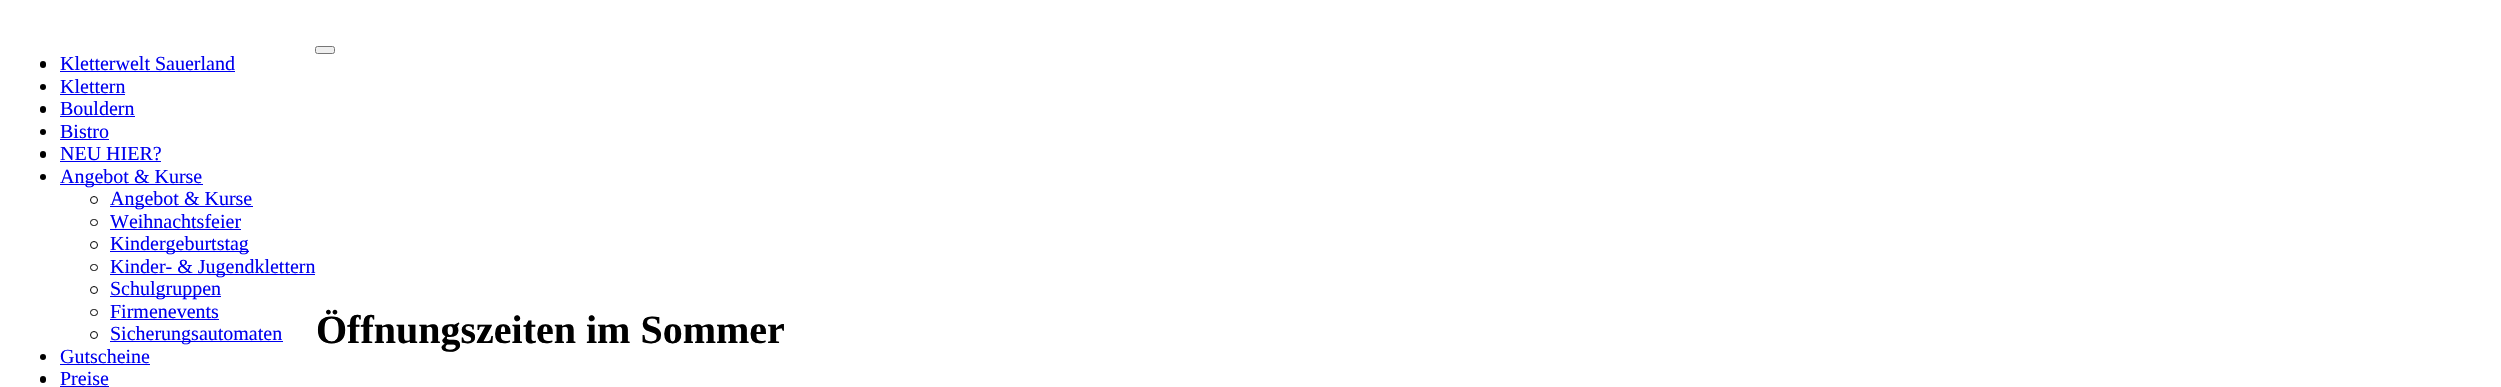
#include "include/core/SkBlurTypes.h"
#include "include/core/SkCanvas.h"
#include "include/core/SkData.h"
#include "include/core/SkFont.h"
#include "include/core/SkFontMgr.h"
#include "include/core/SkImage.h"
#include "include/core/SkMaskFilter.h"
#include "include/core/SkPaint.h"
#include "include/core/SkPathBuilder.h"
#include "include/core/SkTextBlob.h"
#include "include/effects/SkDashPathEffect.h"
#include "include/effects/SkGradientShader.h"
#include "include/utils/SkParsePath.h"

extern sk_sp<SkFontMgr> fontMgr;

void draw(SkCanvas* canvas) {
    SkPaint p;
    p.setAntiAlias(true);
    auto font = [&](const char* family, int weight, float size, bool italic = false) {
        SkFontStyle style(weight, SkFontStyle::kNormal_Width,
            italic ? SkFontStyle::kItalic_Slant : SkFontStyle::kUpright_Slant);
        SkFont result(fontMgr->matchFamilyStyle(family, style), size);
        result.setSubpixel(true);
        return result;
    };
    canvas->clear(0xFFFFFFFF);
    p.setColor(0xFFEFEFEF);
    canvas->drawRoundRect(SkRect::MakeLTRB(315.5f, 46.5f, 334.5f, 53.5f), 2, 2, p);
    p.setStyle(SkPaint::kStroke_Style);
    p.setStrokeWidth(1);
    p.setColor(0xFF767676);
    canvas->drawRoundRect(SkRect::MakeLTRB(315.5f, 46.5f, 334.5f, 53.5f), 2, 2, p);
    p.setStyle(SkPaint::kFill_Style);
    p.setColor(0xFF000000);
    canvas->drawRoundRect(SkRect::MakeLTRB(40, 61, 46, 68), 3, 3, p);
    auto font1 = font("Liberation Serif", 400, 20);
    p.setColor(0xFF0000EE);
    canvas->drawString("Kletterwelt Sauerland", 60, 70, font1, p);
    canvas->drawRect(SkRect::MakeLTRB(60, 71, 235, 72), p);
    p.setColor(0xFF000000);
    canvas->drawCircle(43, 87, 3, p);
    p.setColor(0xFF0000EE);
    canvas->drawString("Klettern", 60, 93, font1, p);
    canvas->drawRect(SkRect::MakeLTRB(60, 94, 125, 95), p);
    p.setColor(0xFF000000);
    canvas->drawRoundRect(SkRect::MakeLTRB(40, 106, 46, 113), 3, 3, p);
    p.setColor(0xFF0000EE);
    canvas->drawString("Bouldern", 60, 115, font1, p);
    canvas->drawRect(SkRect::MakeLTRB(60, 116, 135, 117), p);
    p.setColor(0xFF000000);
    canvas->drawCircle(43, 132, 3, p);
    p.setColor(0xFF0000EE);
    canvas->drawString("Bistro", 60, 138, font1, p);
    canvas->drawRect(SkRect::MakeLTRB(60, 139, 109, 140), p);
    p.setColor(0xFF000000);
    canvas->drawRoundRect(SkRect::MakeLTRB(40, 151, 46, 158), 3, 3, p);
    p.setColor(0xFF0000EE);
    canvas->drawString("NEU HIER?", 60, 160, font1, p);
    canvas->drawRect(SkRect::MakeLTRB(60, 161, 161, 162), p);
    p.setColor(0xFF000000);
    canvas->drawCircle(43, 177, 3, p);
    p.setColor(0xFF0000EE);
    canvas->drawRect(SkRect::MakeLTRB(60, 184, 203, 185), p);
    canvas->drawString("Angebot & Kurse", 60, 183, font1, p);
    p.setStyle(SkPaint::kStroke_Style);
    p.setColor(0xFF000000);
    canvas->drawCircle(94, 200, 3.5f, p);
    p.setStyle(SkPaint::kFill_Style);
    p.setColor(0xFF0000EE);
    canvas->drawRect(SkRect::MakeLTRB(110, 206, 253, 207), p);
    canvas->drawString("Angebot & Kurse", 110, 205, font1, p);
    p.setStyle(SkPaint::kStroke_Style);
    p.setColor(0xFF000000);
    canvas->drawRoundRect(SkRect::MakeLTRB(90.5f, 219.5f, 97.5f, 225.5f), 3, 3, p);
    p.setStyle(SkPaint::kFill_Style);
    p.setColor(0xFF0000EE);
    canvas->drawString("Weihnachtsfeier", 110, 228, font1, p);
    canvas->drawRect(SkRect::MakeLTRB(110, 229, 241, 230), p);
    p.setStyle(SkPaint::kStroke_Style);
    p.setColor(0xFF000000);
    canvas->drawCircle(94, 245, 3.5f, p);
    p.setStyle(SkPaint::kFill_Style);
    p.setColor(0xFF0000EE);
    canvas->drawRect(SkRect::MakeLTRB(110, 251, 249, 252), p);
    canvas->drawString("Kindergeburtstag", 110, 250, font1, p);
    p.setStyle(SkPaint::kStroke_Style);
    p.setColor(0xFF000000);
    canvas->drawRoundRect(SkRect::MakeLTRB(90.5f, 264.5f, 97.5f, 270.5f), 3, 3, p);
    p.setStyle(SkPaint::kFill_Style);
    p.setColor(0xFF0000EE);
    canvas->drawRect(SkRect::MakeLTRB(110, 274, 315, 275), p);
    canvas->drawString("Kinder- & Jugendklettern", 110, 273, font1, p);
    p.setStyle(SkPaint::kStroke_Style);
    p.setColor(0xFF000000);
    canvas->drawCircle(94, 290, 3.5f, p);
    p.setStyle(SkPaint::kFill_Style);
    p.setColor(0xFF0000EE);
    canvas->drawRect(SkRect::MakeLTRB(110, 296, 221, 297), p);
    canvas->drawString("Schulgruppen", 110, 295, font1, p);
    p.setStyle(SkPaint::kStroke_Style);
    p.setColor(0xFF000000);
    canvas->drawRoundRect(SkRect::MakeLTRB(90.5f, 309.5f, 97.5f, 315.5f), 3, 3, p);
    p.setStyle(SkPaint::kFill_Style);
    p.setColor(0xFF0000EE);
    canvas->drawString("Firmenevents", 110, 318, font1, p);
    canvas->drawRect(SkRect::MakeLTRB(110, 319, 219, 320), p);
    p.setStyle(SkPaint::kStroke_Style);
    p.setColor(0xFF000000);
    canvas->drawCircle(94, 335, 3.5f, p);
    p.setStyle(SkPaint::kFill_Style);
    p.setColor(0xFF0000EE);
    canvas->drawRect(SkRect::MakeLTRB(110, 341, 283, 342), p);
    canvas->drawString("Sicherungsautomaten", 110, 340, font1, p);
    p.setColor(0xFF000000);
    canvas->drawCircle(43, 357, 3, p);
    p.setColor(0xFF0000EE);
    canvas->drawString("Gutscheine", 60, 363, font1, p);
    canvas->drawRect(SkRect::MakeLTRB(60, 364, 150, 365), p);
    p.setColor(0xFF000000);
    canvas->drawRoundRect(SkRect::MakeLTRB(40, 376, 46, 383), 3, 3, p);
    p.setColor(0xFF0000EE);
    canvas->drawString("Preise", 60, 385, font1, p);
    canvas->drawRect(SkRect::MakeLTRB(60, 386, 109, 387), p);
    auto font2 = font("Liberation Serif", 700, 40);
    p.setColor(0xFF000000);
    canvas->drawString("Öffnungszeiten im Sommer", 316, 343, font2, p);
}
